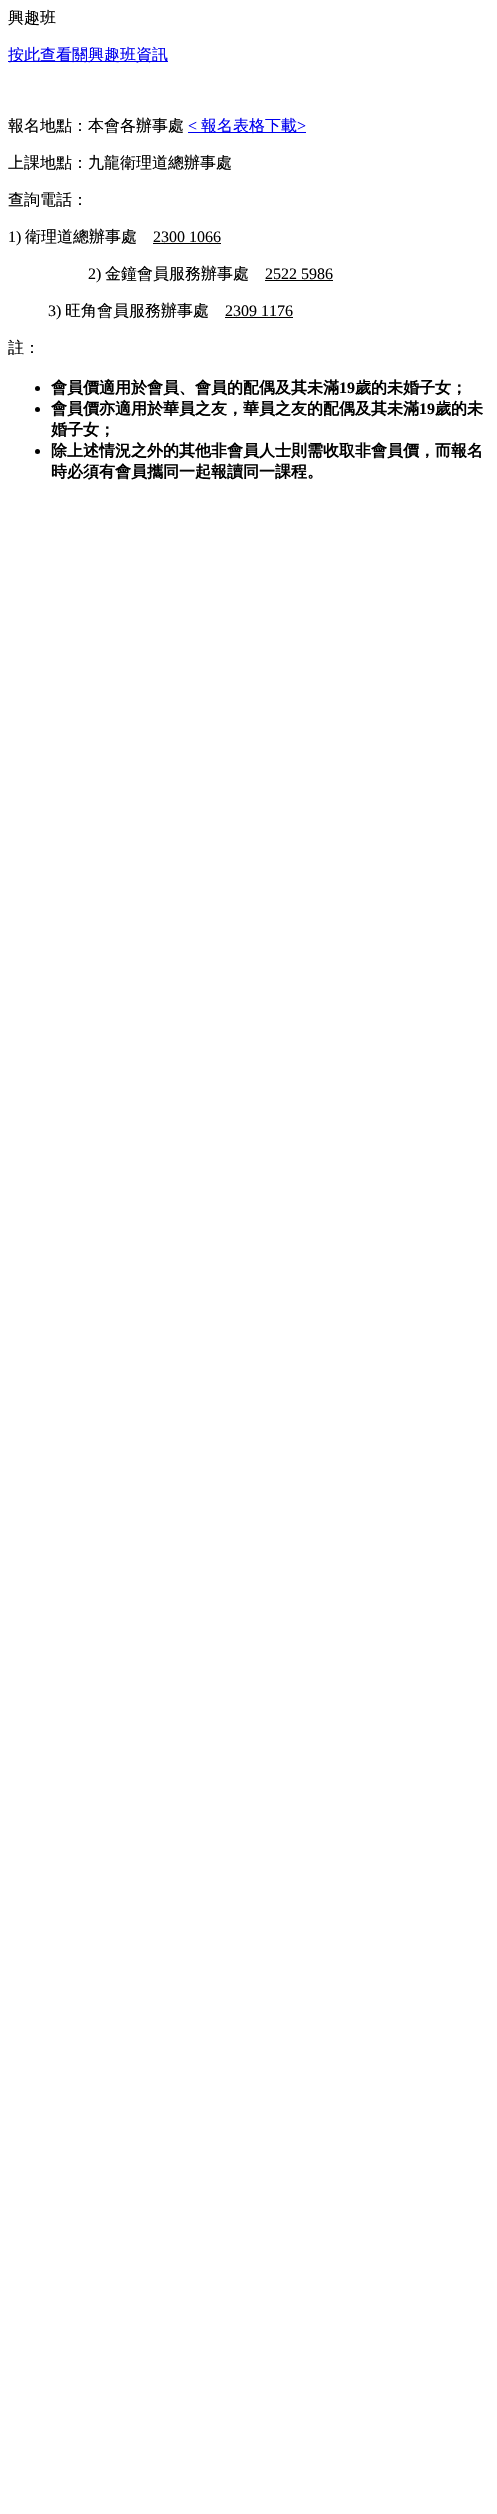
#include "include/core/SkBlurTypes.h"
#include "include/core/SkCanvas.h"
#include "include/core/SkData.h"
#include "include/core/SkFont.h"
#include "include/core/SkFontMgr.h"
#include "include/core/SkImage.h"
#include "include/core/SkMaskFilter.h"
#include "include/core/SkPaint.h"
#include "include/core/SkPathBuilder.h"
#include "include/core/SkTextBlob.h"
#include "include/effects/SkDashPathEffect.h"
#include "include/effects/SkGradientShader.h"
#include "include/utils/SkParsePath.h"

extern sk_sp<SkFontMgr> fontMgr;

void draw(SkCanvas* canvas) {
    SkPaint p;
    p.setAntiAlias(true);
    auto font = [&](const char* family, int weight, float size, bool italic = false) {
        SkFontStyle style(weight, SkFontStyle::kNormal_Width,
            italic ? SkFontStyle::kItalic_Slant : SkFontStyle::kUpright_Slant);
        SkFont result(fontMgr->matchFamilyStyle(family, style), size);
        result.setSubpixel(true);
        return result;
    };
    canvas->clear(0xFFFFFFFF);
    auto font1 = font("WenQuanYi Zen Hei", 500, 16);
    p.setColor(0xFF000000);
    canvas->drawString("興趣班", 8, 23, font1, p);
    p.setColor(0xFF0000EE);
    canvas->drawRect(SkRect::MakeLTRB(8, 61, 168, 62), p);
    canvas->drawString("按此查看關興趣班資訊", 8, 60, font1, p);
    p.setColor(0xFF000000);
    canvas->drawString("報名地點：本會各辦事處", 8, 131, font1, p);
    auto font2 = font("Liberation Serif", 400, 16);
    p.setColor(0xFF0000EE);
    canvas->drawString("<", 188, 131, font2, p);
    canvas->drawRect(SkRect::MakeLTRB(188, 132, 306, 133), p);
    canvas->drawString("報名表格下載", 201, 131, font1, p);
    canvas->drawString(">", 297, 131, font2, p);
    p.setColor(0xFF000000);
    canvas->drawString("上課地點：九龍衛理道總辦事處", 8, 168, font1, p);
    canvas->drawString("查詢電話：", 8, 205, font1, p);
    canvas->drawString("1)", 8, 242, font2, p);
    canvas->drawString("衛理道總辦事處", 25, 242, font1, p);
    canvas->drawString("2300 1066", 153, 242, font2, p);
    canvas->drawRect(SkRect::MakeLTRB(153, 243, 221, 244), p);
    canvas->drawString("2)", 88, 279, font2, p);
    canvas->drawString("金鐘會員服務辦事處", 105, 279, font1, p);
    canvas->drawString("2522 5986", 265, 279, font2, p);
    canvas->drawRect(SkRect::MakeLTRB(265, 280, 333, 281), p);
    canvas->drawString("3)", 48, 316, font2, p);
    canvas->drawString("旺角會員服務辦事處", 65, 316, font1, p);
    canvas->drawString("2309 1176", 225, 316, font2, p);
    canvas->drawRect(SkRect::MakeLTRB(225, 317, 293, 318), p);
    canvas->drawString("註：", 8, 353, font1, p);
    canvas->drawCircle(37.5f, 388.5f, 2.5f, p);
    auto font3 = font("WenQuanYi Zen Hei", 700, 16);
    canvas->drawString("會員價適用於會員、會員的配偶及其未滿", 51, 393, font3, p);
    auto font4 = font("Liberation Serif", 700, 16);
    canvas->drawString("19", 339, 393, font4, p);
    canvas->drawString("歲的未婚子女；", 355, 393, font3, p);
    canvas->drawCircle(37.5f, 409.5f, 2.5f, p);
    canvas->drawString("會員價亦適用於華員之友，華員之友的配偶及其未滿", 51, 414, font3, p);
    canvas->drawString("19", 419, 414, font4, p);
    canvas->drawString("歲的未", 435, 414, font3, p);
    canvas->drawString("婚子女；", 51, 435, font3, p);
    canvas->drawCircle(37.5f, 451.5f, 2.5f, p);
    canvas->drawString("除上述情況之外的其他非會員人士則需收取非會員價，而報名", 51, 456, font3, p);
    canvas->drawString("時必須有會員攜同一起報讀同一課程。", 51, 477, font3, p);
}
